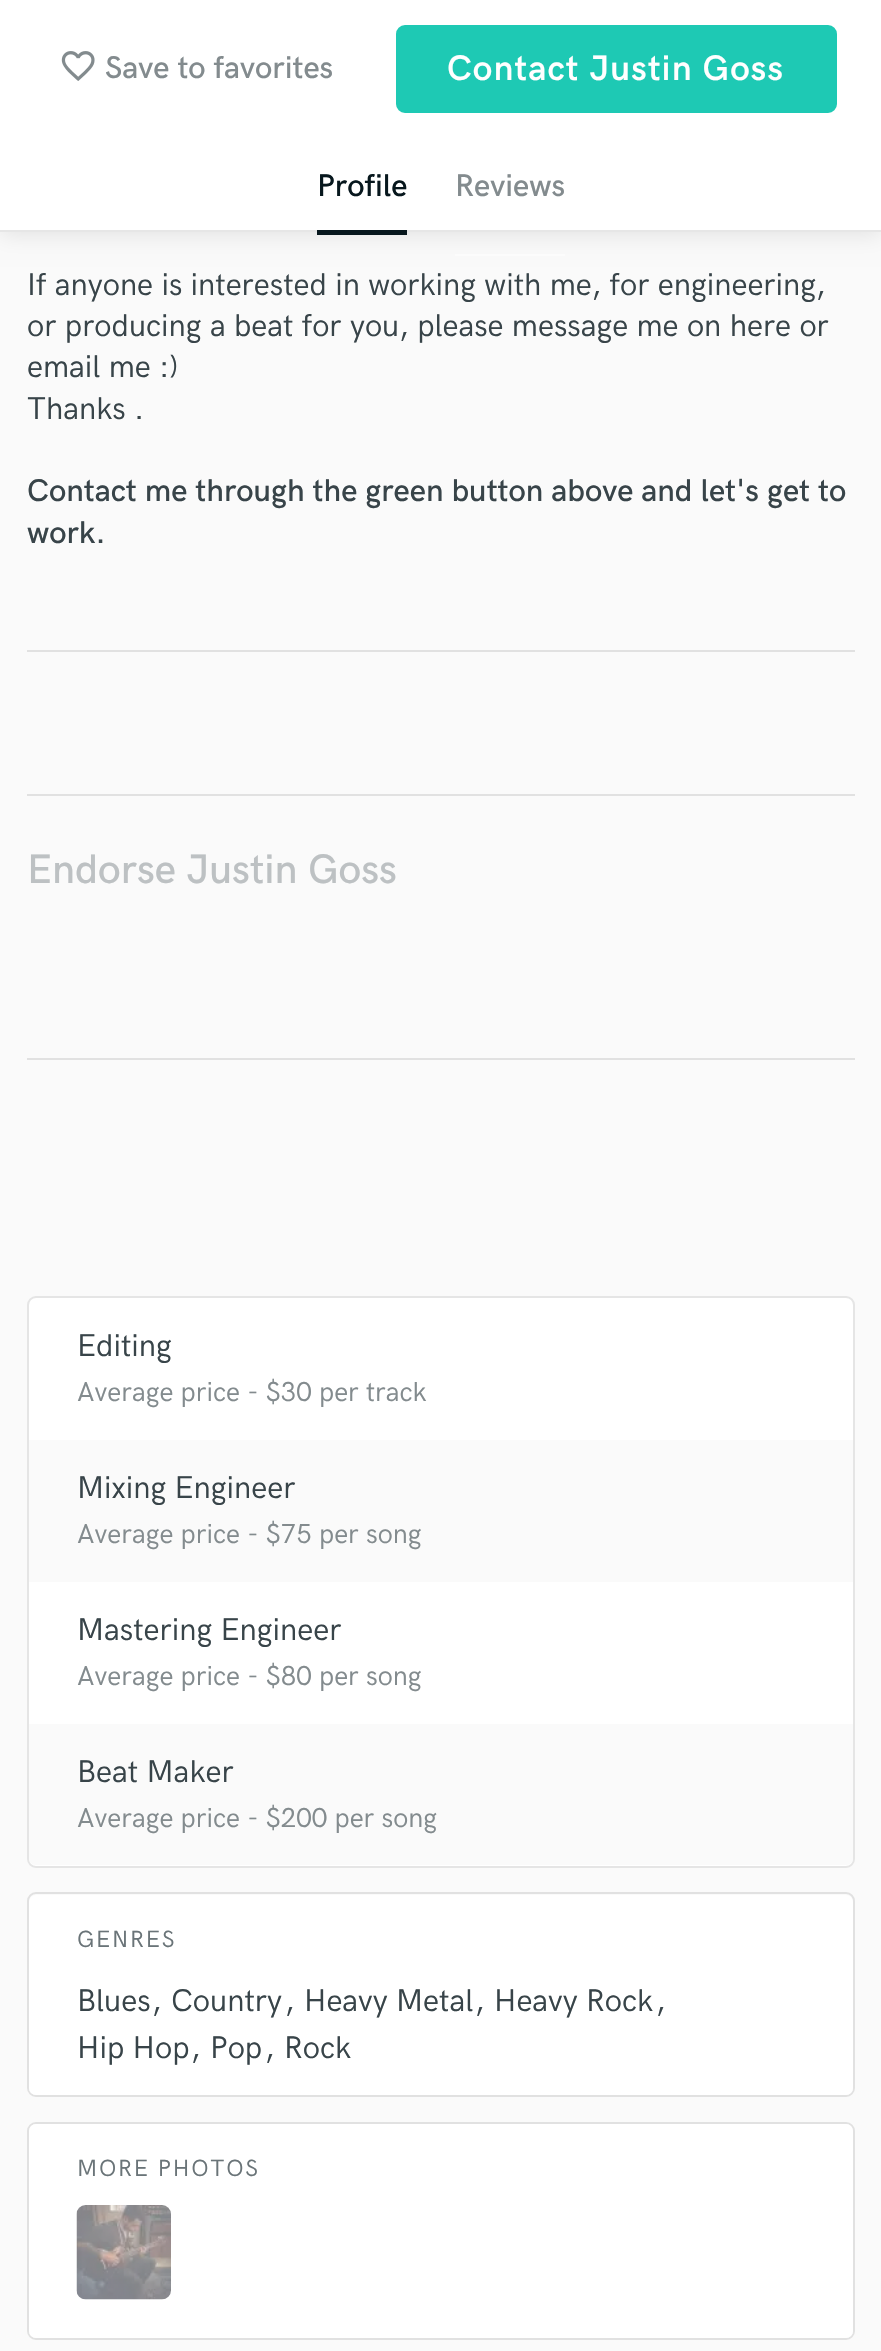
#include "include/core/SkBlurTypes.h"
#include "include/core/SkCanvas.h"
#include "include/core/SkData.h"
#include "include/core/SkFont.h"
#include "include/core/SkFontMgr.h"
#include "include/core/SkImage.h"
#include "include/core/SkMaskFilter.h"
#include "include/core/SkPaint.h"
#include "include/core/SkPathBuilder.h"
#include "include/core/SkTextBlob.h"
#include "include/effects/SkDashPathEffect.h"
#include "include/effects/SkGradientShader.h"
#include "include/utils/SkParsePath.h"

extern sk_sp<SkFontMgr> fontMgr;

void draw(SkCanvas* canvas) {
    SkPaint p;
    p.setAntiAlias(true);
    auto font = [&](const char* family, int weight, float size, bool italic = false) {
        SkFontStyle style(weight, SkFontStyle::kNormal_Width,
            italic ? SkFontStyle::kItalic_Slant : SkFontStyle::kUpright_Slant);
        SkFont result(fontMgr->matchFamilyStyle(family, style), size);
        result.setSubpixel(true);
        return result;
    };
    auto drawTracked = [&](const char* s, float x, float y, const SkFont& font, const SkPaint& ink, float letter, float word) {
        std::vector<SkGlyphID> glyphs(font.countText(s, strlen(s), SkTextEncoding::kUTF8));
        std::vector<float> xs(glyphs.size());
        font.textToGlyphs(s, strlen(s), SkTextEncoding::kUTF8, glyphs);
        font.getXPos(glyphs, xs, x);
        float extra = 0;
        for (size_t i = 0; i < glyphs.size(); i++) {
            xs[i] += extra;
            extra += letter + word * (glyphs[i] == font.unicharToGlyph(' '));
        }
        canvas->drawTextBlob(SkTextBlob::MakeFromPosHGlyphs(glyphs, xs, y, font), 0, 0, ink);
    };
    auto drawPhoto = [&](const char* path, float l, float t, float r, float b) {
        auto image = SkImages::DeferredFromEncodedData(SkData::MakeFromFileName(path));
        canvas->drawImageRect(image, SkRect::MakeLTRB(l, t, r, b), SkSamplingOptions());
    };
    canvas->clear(0xFFFAFAFA);
    p.setColor(0x1A000000);
    p.setMaskFilter(SkMaskFilter::MakeBlur(kNormal_SkBlurStyle, 11));
    canvas->drawRect(SkRect::MakeLTRB(0, 2, 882, 234), p);
    p.setMaskFilter(nullptr);
    p.setColor(0xFFFFFFFF);
    canvas->drawRect(SkRect::MakeLTRB(0, 0, 881, 230), p);
    p.setColor(0xFFE6E6E6);
    canvas->drawRect(SkRect::MakeLTRB(0, 230, 881, 232), p);
    drawPhoto("media/1.png", 61, 51, 95, 81);
    auto font1 = font("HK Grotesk", 500, 31.5f);
    p.setColor(0xFF838B8E);
    canvas->drawString("Save to favorites", 105, 78, font1, p);
    p.setColor(0xFF1EC9B4);
    canvas->drawRoundRect(SkRect::MakeLTRB(398.5f, 27.5f, 834.5f, 110.5f), 6.5f, 6.5f, p);
    p.setStyle(SkPaint::kStroke_Style);
    p.setStrokeWidth(5);
    canvas->drawRoundRect(SkRect::MakeLTRB(398.5f, 27.5f, 834.5f, 110.5f), 6.5f, 6.5f, p);
    auto font2 = font("HK Grotesk", 600, 35.5f);
    p.setStyle(SkPaint::kFill_Style);
    p.setColor(0xFFFFFFFF);
    drawTracked("Contact Justin Goss", 447, 80, font2, p, 1.1f, 0);
    p.setColor(0xFF07171D);
    canvas->drawString("Profile", 317, 196, font1, p);
    canvas->drawRect(SkRect::MakeLTRB(317, 230, 407, 235), p);
    p.setColor(0xFF838B8E);
    canvas->drawString("Reviews", 455, 196, font1, p);
    p.setColor(0xFFFCFCFC);
    canvas->drawRect(SkRect::MakeLTRB(455, 254, 565, 256), p);
    p.setColor(0xFFE1E1E1);
    canvas->drawRect(SkRect::MakeLTRB(27, 650, 855, 652), p);
    auto font3 = font("HK Grotesk", 400, 31.5f);
    p.setColor(0xFF384449);
    {
        const struct { const char* s; float x, y; } items[] = {
            {"If anyone is interested in working with me, for engineering,", 27, 295},
            {"or producing a beat for you, please message me on here or", 27, 336},
            {"email me :)", 27, 377},
            {"Thanks .", 27, 419},
        };
        for (auto [s, x, y] : items) {
            canvas->drawString(s, x, y, font3, p);
        }
    }
    canvas->drawString("Contact me through the green button above and let's get to", 27, 501, font1, p);
    canvas->drawString("work.", 27, 543, font1, p);
    p.setColor(0xFFE1E1E1);
    canvas->drawRect(SkRect::MakeLTRB(27, 794, 855, 796), p);
    canvas->drawRect(SkRect::MakeLTRB(27, 1058, 855, 1060), p);
    auto font4 = font("HK Grotesk", 500, 41.25f);
    p.setColor(0xFFBDC1C3);
    canvas->drawString("Endorse Justin Goss", 27, 883, font4, p);
    p.setColor(0xFFFFFFFF);
    canvas->drawRoundRect(SkRect::MakeLTRB(28, 1297, 854, 1867), 8, 8, p);
    p.setStyle(SkPaint::kStroke_Style);
    p.setStrokeWidth(2);
    p.setColor(0xFFE5E5E5);
    canvas->drawRoundRect(SkRect::MakeLTRB(28, 1297, 854, 1867), 8, 8, p);
    p.setStyle(SkPaint::kFill_Style);
    p.setColor(0xFF384449);
    canvas->drawString("Editing", 77, 1356, font3, p);
    auto font5 = font("HK Grotesk", 400, 27.5f);
    p.setColor(0xFF838B8E);
    canvas->drawString("Average price - $30 per track", 77, 1401, font5, p);
    p.setColor(0xFFFAFAFA);
    canvas->drawRect(SkRect::MakeLTRB(29, 1440, 853, 1582), p);
    p.setColor(0xFF384449);
    canvas->drawString("Mixing Engineer", 77, 1498, font3, p);
    p.setColor(0xFF838B8E);
    canvas->drawString("Average price - $75 per song", 77, 1543, font5, p);
    p.setColor(0xFF384449);
    canvas->drawString("Mastering Engineer", 77, 1640, font3, p);
    p.setColor(0xFF838B8E);
    canvas->drawString("Average price - $80 per song", 77, 1685, font5, p);
    p.setColor(0xFFFAFAFA);
    canvas->drawPath(SkPathBuilder().moveTo(29, 1724).lineTo(853, 1724).lineTo(853, 1858).cubicTo(853, 1862, 850, 1865, 846, 1865).lineTo(36, 1865).cubicTo(32, 1865, 29, 1862, 29, 1858).close().detach(), p);
    p.setColor(0xFF384449);
    canvas->drawString("Beat Maker", 77, 1782, font3, p);
    p.setColor(0xFF838B8E);
    canvas->drawString("Average price - $200 per song", 77, 1827, font5, p);
    p.setStyle(SkPaint::kStroke_Style);
    p.setColor(0xFFE1E1E1);
    canvas->drawRoundRect(SkRect::MakeLTRB(28, 1893, 854, 2096), 8, 8, p);
    p.setStyle(SkPaint::kFill_Style);
    p.setColor(0xFFFFFFFF);
    canvas->drawRoundRect(SkRect::MakeLTRB(29, 1895, 853, 2095), 7, 7, p);
    auto font6 = font("HK Grotesk", 400, 23.5f);
    p.setColor(0xFF6A7478);
    drawTracked("GENRES", 77, 1947, font6, p, 1.75f, 0);
    p.setColor(0xFF384449);
    {
        const struct { const char* s; float x, y; } items[] = {
            {"Blues", 77, 2011},
            {",", 152, 2011},
            {"Country", 171, 2011},
            {",", 285, 2011},
            {"Heavy Metal", 304, 2011},
            {",", 475, 2011},
            {"Heavy Rock", 494, 2011},
            {",", 656, 2011},
            {"Hip Hop", 77, 2058},
            {",", 191, 2058},
            {"Pop", 210, 2058},
            {",", 265, 2058},
            {"Rock", 284, 2058},
        };
        for (auto [s, x, y] : items) {
            canvas->drawString(s, x, y, font3, p);
        }
    }
    p.setStyle(SkPaint::kStroke_Style);
    p.setColor(0xFFE1E1E1);
    canvas->drawRoundRect(SkRect::MakeLTRB(28, 2123, 854, 2339), 8, 8, p);
    p.setStyle(SkPaint::kFill_Style);
    p.setColor(0xFFFFFFFF);
    canvas->drawRoundRect(SkRect::MakeLTRB(29, 2124, 853, 2338), 7, 7, p);
    p.setColor(0xFF6A7478);
    drawTracked("MORE PHOTOS", 77, 2176, font6, p, 1.75f, 0);
    drawPhoto("media/2.png", 76, 2205, 171, 2300);
}
